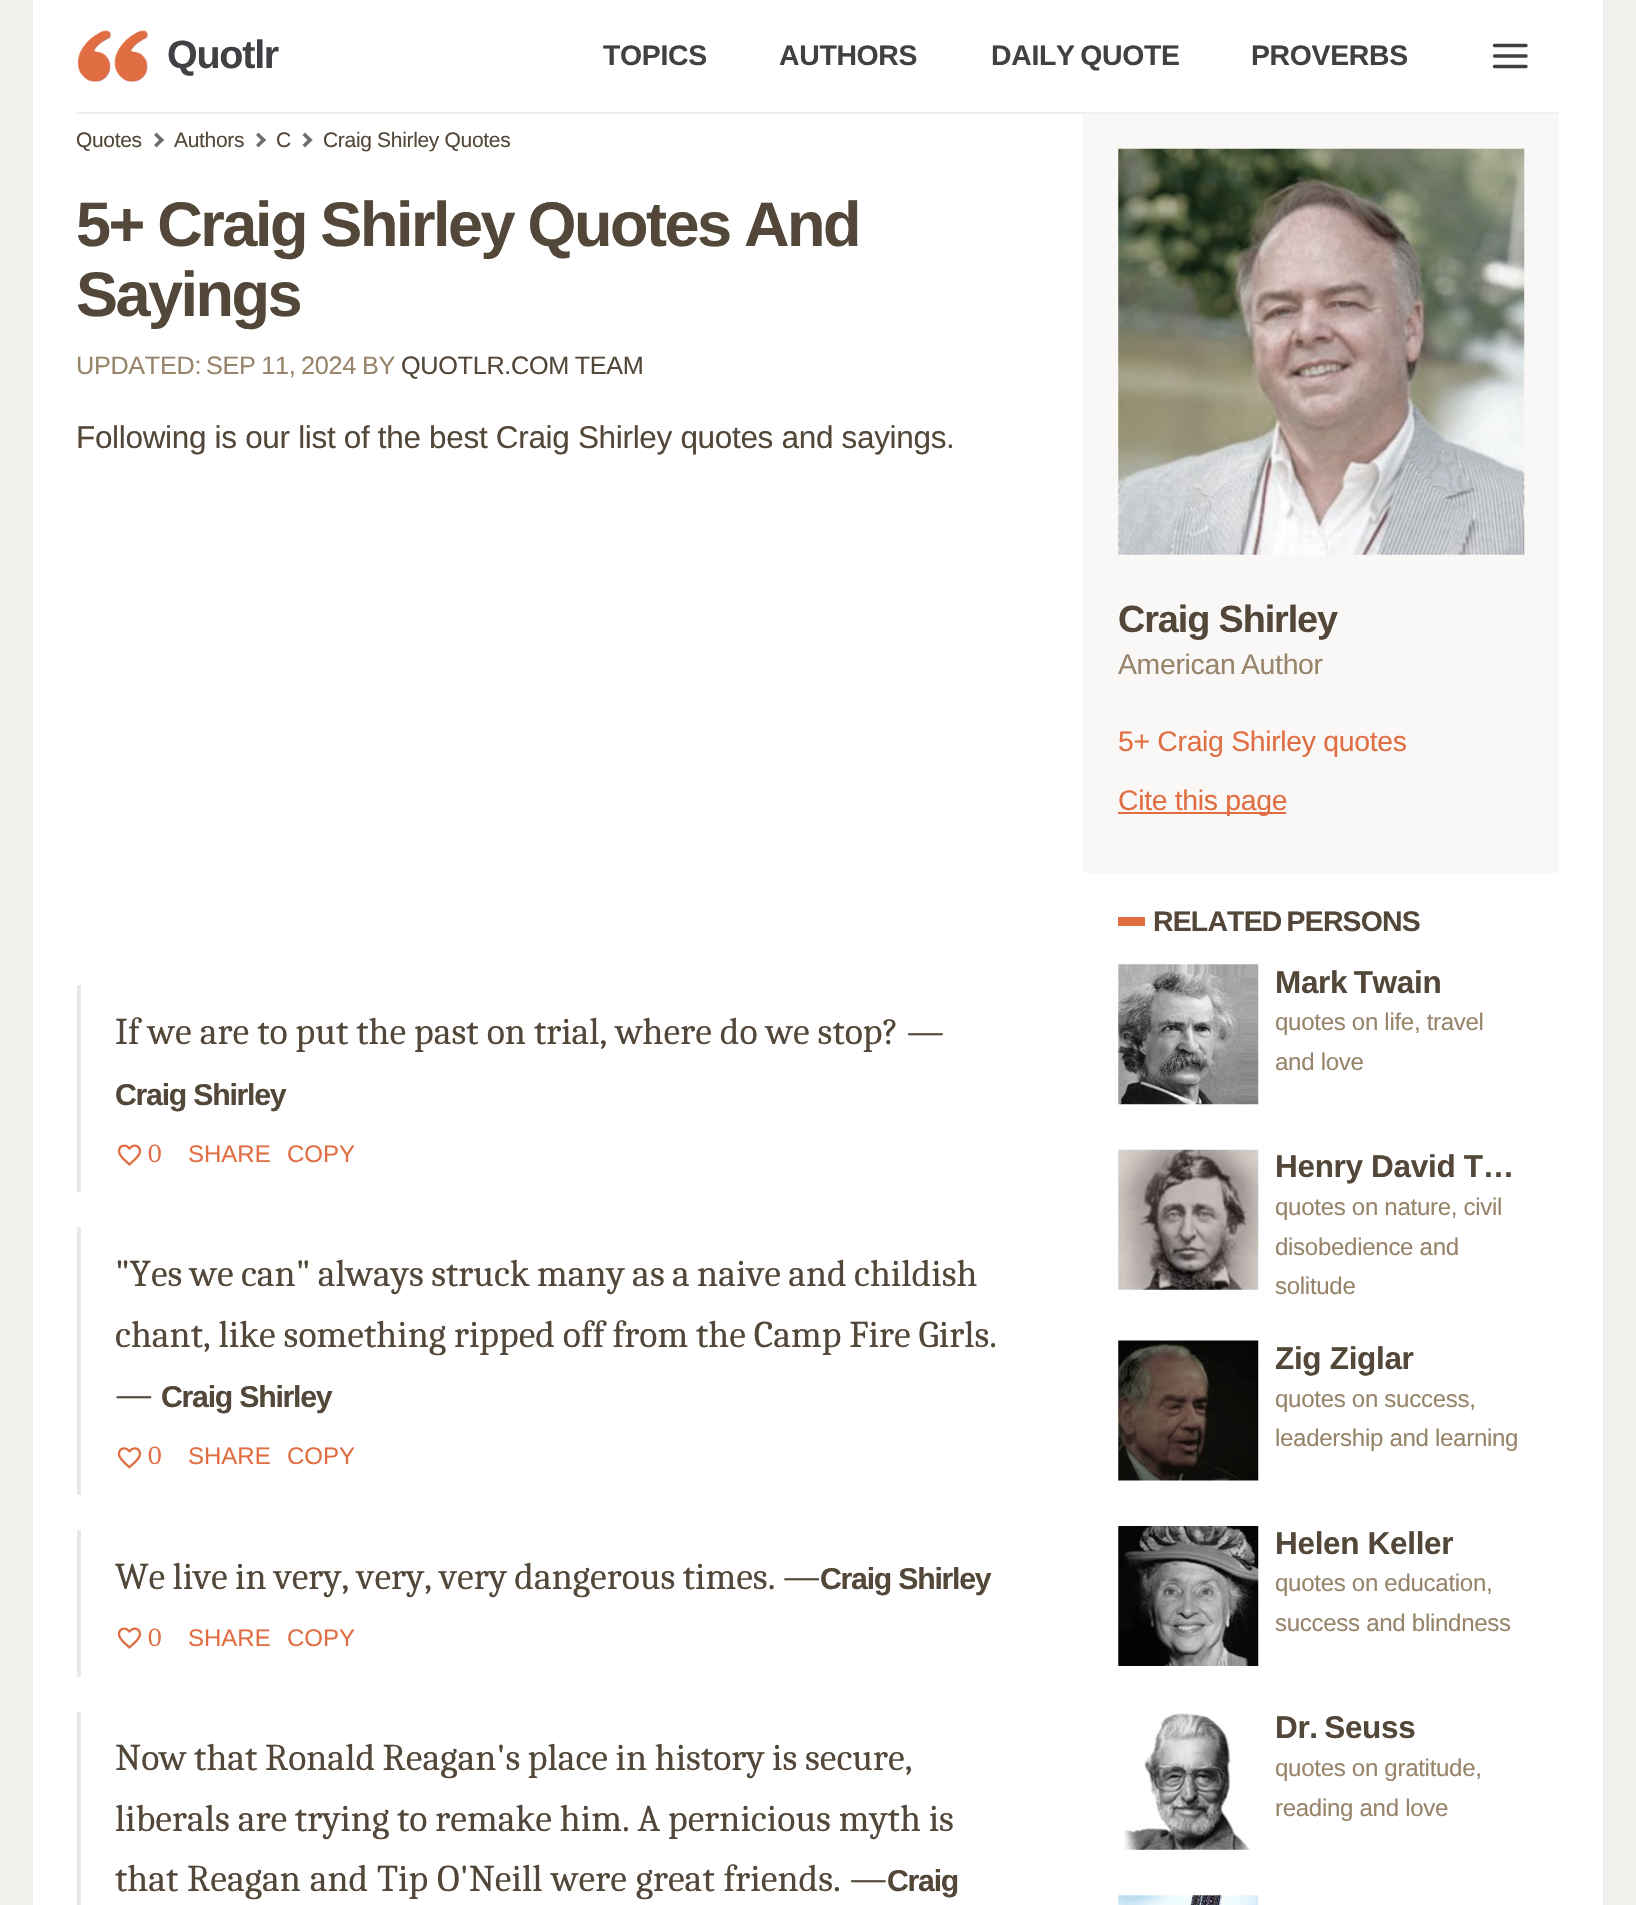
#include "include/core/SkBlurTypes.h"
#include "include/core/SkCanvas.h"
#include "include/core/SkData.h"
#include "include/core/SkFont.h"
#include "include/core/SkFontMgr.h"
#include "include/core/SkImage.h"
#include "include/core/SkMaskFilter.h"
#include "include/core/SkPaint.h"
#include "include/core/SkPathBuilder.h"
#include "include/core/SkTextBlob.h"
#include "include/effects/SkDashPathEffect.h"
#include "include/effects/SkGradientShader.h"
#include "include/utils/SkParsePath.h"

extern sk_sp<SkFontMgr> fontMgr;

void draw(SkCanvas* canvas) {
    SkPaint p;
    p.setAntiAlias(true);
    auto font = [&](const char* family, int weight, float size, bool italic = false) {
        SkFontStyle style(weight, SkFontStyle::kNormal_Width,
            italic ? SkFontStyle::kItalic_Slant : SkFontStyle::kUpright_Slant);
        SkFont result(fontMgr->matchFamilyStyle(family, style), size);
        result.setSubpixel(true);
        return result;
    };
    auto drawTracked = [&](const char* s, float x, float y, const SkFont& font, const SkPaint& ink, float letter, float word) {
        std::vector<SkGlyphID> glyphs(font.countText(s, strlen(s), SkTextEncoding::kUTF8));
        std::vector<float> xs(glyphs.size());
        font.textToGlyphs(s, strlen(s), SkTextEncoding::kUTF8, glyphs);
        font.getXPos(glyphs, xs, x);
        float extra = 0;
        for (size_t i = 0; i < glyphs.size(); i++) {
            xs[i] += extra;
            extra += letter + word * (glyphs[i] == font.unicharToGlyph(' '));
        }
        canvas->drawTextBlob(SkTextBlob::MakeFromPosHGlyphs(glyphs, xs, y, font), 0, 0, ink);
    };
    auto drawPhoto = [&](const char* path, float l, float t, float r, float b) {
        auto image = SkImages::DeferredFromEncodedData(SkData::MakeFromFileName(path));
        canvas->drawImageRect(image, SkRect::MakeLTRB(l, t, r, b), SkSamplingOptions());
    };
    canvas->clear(0xFFF2F0ED);
    p.setColor(0xFFFFFFFF);
    canvas->drawRect(SkRect::MakeLTRB(33, 0, 1603, 1905), p);
    p.setColor(0xFFF2F0ED);
    canvas->drawRect(SkRect::MakeLTRB(77, 112, 1559, 114), p);
    drawPhoto("media/1.png", 77, 30, 148, 82);
    auto font1 = font("Liberation Sans", 700, 39.5f);
    p.setColor(0xFF3F4144);
    drawTracked("Quotlr", 167, 68, font1, p, -1.25f, 0);
    auto font2 = font("Liberation Sans", 700, 28.4f);
    drawTracked("TOPICS", 603, 65, font2, p, -0.32f, 0);
    drawTracked("AUTHORS", 779, 65, font2, p, -0.32f, 0);
    drawTracked("DAILY QUOTE", 991, 65, font2, p, -0.32f, -2);
    drawTracked("PROVERBS", 1251, 65, font2, p, -0.32f, 0);
    p.setStyle(SkPaint::kStroke_Style);
    p.setStrokeWidth(3.5f);
    p.setStrokeCap(SkPaint::kRound_Cap);
    p.setStrokeJoin(SkPaint::kRound_Join);
    p.setColor(0xFF3D4143);
    canvas->drawPath(SkPathBuilder().moveTo(1494.5f, 45.5f).lineTo(1526, 45.5f).moveTo(1494.5f, 56).lineTo(1526, 56).moveTo(1494.5f, 66.5f).lineTo(1526, 66.5f).detach(), p);
    auto font3 = font("Liberation Sans", 400, 21);
    p.setStyle(SkPaint::kFill_Style);
    p.setColor(0xFF524739);
    drawTracked("Quotes", 76, 147, font3, p, -0.32f, 0);
    p.setColor(0xFF6F6F6F);
    canvas->drawPath(SkPathBuilder().moveTo(154, 135).lineTo(156.5f, 132.5f).lineTo(164, 140).lineTo(161.5f, 142.5f).close().detach(), p);
    canvas->drawPath(SkPathBuilder().moveTo(154, 145).lineTo(161.5f, 137.5f).lineTo(164, 140).lineTo(156.5f, 147.5f).close().detach(), p);
    p.setColor(0xFF524739);
    drawTracked("Authors", 174, 147, font3, p, -0.32f, 0);
    p.setColor(0xFF6F6F6F);
    canvas->drawPath(SkPathBuilder().moveTo(256, 135).lineTo(258.5f, 132.5f).lineTo(266, 140).lineTo(263.5f, 142.5f).close().detach(), p);
    canvas->drawPath(SkPathBuilder().moveTo(256, 145).lineTo(263.5f, 137.5f).lineTo(266, 140).lineTo(258.5f, 147.5f).close().detach(), p);
    p.setColor(0xFF524739);
    drawTracked("C", 276, 147, font3, p, -0.32f, 0);
    p.setColor(0xFF6F6F6F);
    canvas->drawPath(SkPathBuilder().moveTo(302.5f, 135).lineTo(305, 132.5f).lineTo(312.5f, 140).lineTo(310, 142.5f).close().detach(), p);
    canvas->drawPath(SkPathBuilder().moveTo(302.5f, 145).lineTo(310, 137.5f).lineTo(312.5f, 140).lineTo(305, 147.5f).close().detach(), p);
    p.setColor(0xFF524739);
    drawTracked("Craig Shirley Quotes", 323, 147, font3, p, -0.32f, 0);
    auto font4 = font("Liberation Sans", 700, 63);
    drawTracked("5+ Craig Shirley Quotes And", 76, 246, font4, p, -2.5f, -0.5f);
    drawTracked("Sayings", 76, 316, font4, p, -2.5f, 0);
    auto font5 = font("Liberation Sans", 400, 25.25f);
    p.setColor(0xFF97846A);
    drawTracked("UPDATED:", 76, 374, font5, p, -0.32f, 0);
    drawTracked("SEP 11, 2024", 206, 374, font5, p, -0.32f, -1);
    drawTracked("BY", 362, 374, font5, p, -0.32f, 0);
    p.setColor(0xFF524739);
    drawTracked("QUOTLR.COM TEAM", 401, 374, font5, p, -0.32f, -1);
    auto font6 = font("Liberation Sans", 400, 31.5f);
    drawTracked("Following is our list of the best Craig Shirley quotes and sayings.", 76, 448, font6, p, -0.32f, 0);
    p.setColor(0xFFEBE7E3);
    canvas->drawRect(SkRect::MakeLTRB(77, 985, 81, 1192), p);
    auto font7 = font("Caladea", 400, 37.8f);
    p.setColor(0xFF524739);
    drawTracked("If we are to put the past on trial, where do we stop? —", 115, 1044, font7, p, 0, -0.3f);
    auto font8 = font("Liberation Sans", 700, 30.25f);
    drawTracked("Craig Shirley", 115, 1105, font8, p, -1.25f, 0);
    drawPhoto("media/2.png", 117, 1144, 142, 1166);
    auto font9 = font("Caladea", 400, 26);
    p.setColor(0xFFE06E42);
    canvas->drawString("0", 148, 1162, font9, p);
    auto font10 = font("Liberation Sans", 400, 24);
    canvas->drawString("SHARE", 188, 1162, font10, p);
    canvas->drawString("COPY", 287, 1162, font10, p);
    p.setColor(0xFFEBE7E3);
    canvas->drawRect(SkRect::MakeLTRB(77, 1227, 81, 1495), p);
    p.setColor(0xFF524739);
    drawTracked("\"Yes we can\" always struck many as a naive and childish", 115, 1286, font7, p, 0, -1);
    drawTracked("chant, like something ripped off from the Camp Fire Girls.", 115, 1347, font7, p, 0, -0.5f);
    canvas->drawString("—", 115, 1407, font7, p);
    drawTracked("Craig Shirley", 161, 1407, font8, p, -1.25f, 0);
    drawPhoto("media/3.png", 117, 1447, 142, 1469);
    p.setColor(0xFFE06E42);
    canvas->drawString("0", 148, 1464, font9, p);
    canvas->drawString("SHARE", 188, 1464, font10, p);
    canvas->drawString("COPY", 287, 1464, font10, p);
    p.setColor(0xFFEBE7E3);
    canvas->drawRect(SkRect::MakeLTRB(77, 1530, 81, 1677), p);
    p.setColor(0xFF524739);
    drawTracked("We live in very, very, very dangerous times. —", 115, 1589, font7, p, 0, -1);
    drawTracked("Craig Shirley", 820, 1589, font8, p, -1.25f, 0);
    drawPhoto("media/2.png", 117, 1627, 142, 1649);
    p.setColor(0xFFE06E42);
    canvas->drawString("0", 148, 1646, font9, p);
    canvas->drawString("SHARE", 188, 1646, font10, p);
    canvas->drawString("COPY", 287, 1646, font10, p);
    p.setColor(0xFFEBE7E3);
    canvas->drawRect(SkRect::MakeLTRB(77, 1712, 81, 1905), p);
    p.setColor(0xFF524739);
    drawTracked("Now that Ronald Reagan's place in history is secure,", 115, 1770, font7, p, 0, -0.75f);
    drawTracked("liberals are trying to remake him. A pernicious myth is", 115, 1831, font7, p, 0, -0.5f);
    drawTracked("that Reagan and Tip O'Neill were great friends. —", 115, 1891, font7, p, 0, 0.5f);
    drawTracked("Craig", 887, 1891, font8, p, -1.25f, 0);
    p.setColor(0xFFF9F8F7);
    canvas->drawRect(SkRect::MakeLTRB(1083, 114, 1559, 873), p);
    drawPhoto("media/4.png", 1118, 148, 1525, 555);
    auto font11 = font("Liberation Sans", 700, 37.8f);
    p.setColor(0xFF524739);
    drawTracked("Craig Shirley", 1118, 632, font11, p, -1.1f, 0);
    auto font12 = font("Liberation Sans", 400, 28.4f);
    p.setColor(0xFF97846A);
    drawTracked("American Author", 1118, 674, font12, p, -0.32f, -2);
    p.setColor(0xFFE06E42);
    drawTracked("5+ Craig Shirley quotes", 1118, 751, font12, p, -0.32f, 0);
    canvas->drawRect(SkRect::MakeLTRB(1118, 812, 1286, 814), p);
    drawTracked("Cite this page", 1118, 810, font12, p, -0.32f, 0);
    canvas->drawRect(SkRect::MakeLTRB(1118, 917, 1145, 926), p);
    p.setColor(0xFF524739);
    drawTracked("RELATED PERSONS", 1153, 931, font2, p, -0.8f, -2);
    drawPhoto("media/5.png", 1118, 964, 1259, 1105);
    auto font13 = font("Liberation Sans", 700, 31.5f);
    drawTracked("Mark Twain", 1275, 993, font13, p, -0.32f, -2);
    auto font14 = font("Liberation Sans", 400, 24.1f);
    p.setColor(0xFF97846A);
    drawTracked("quotes on life, travel", 1275, 1030, font14, p, -0.32f, 0);
    drawTracked("and love", 1275, 1070, font14, p, -0.32f, 0);
    drawPhoto("media/6.png", 1118, 1149, 1259, 1290);
    p.setColor(0xFF524739);
    drawTracked("Henry David T…", 1275, 1177, font13, p, -0.32f, 0);
    p.setColor(0xFF97846A);
    {
        const struct { const char* s; float x, y; } items[] = {
            {"quotes on nature, civil", 1275, 1215},
            {"disobedience and", 1275, 1255},
            {"solitude", 1275, 1294},
        };
        for (auto [s, x, y] : items) {
            drawTracked(s, x, y, font14, p, -0.32f, 0);
        }
    }
    drawPhoto("media/7.png", 1118, 1340, 1259, 1481);
    p.setColor(0xFF524739);
    drawTracked("Zig Ziglar", 1275, 1369, font13, p, -0.32f, 0);
    p.setColor(0xFF97846A);
    drawTracked("quotes on success,", 1275, 1407, font14, p, -0.32f, 0);
    drawTracked("leadership and learning", 1275, 1446, font14, p, -0.32f, 0);
    drawPhoto("media/8.png", 1118, 1526, 1259, 1666);
    p.setColor(0xFF524739);
    drawTracked("Helen Keller", 1275, 1554, font13, p, -0.32f, 0);
    p.setColor(0xFF97846A);
    drawTracked("quotes on education,", 1275, 1591, font14, p, -0.32f, 0);
    drawTracked("success and blindness", 1275, 1631, font14, p, -0.32f, 0);
    drawPhoto("media/9.png", 1124, 1713, 1250, 1850);
    p.setColor(0xFF524739);
    drawTracked("Dr. Seuss", 1275, 1738, font13, p, -0.32f, -2);
    p.setColor(0xFF97846A);
    drawTracked("quotes on gratitude,", 1275, 1776, font14, p, -0.32f, 0);
    drawTracked("reading and love", 1275, 1816, font14, p, -0.32f, 0);
    drawPhoto("media/10.png", 1118, 1895, 1259, 1905);
}
